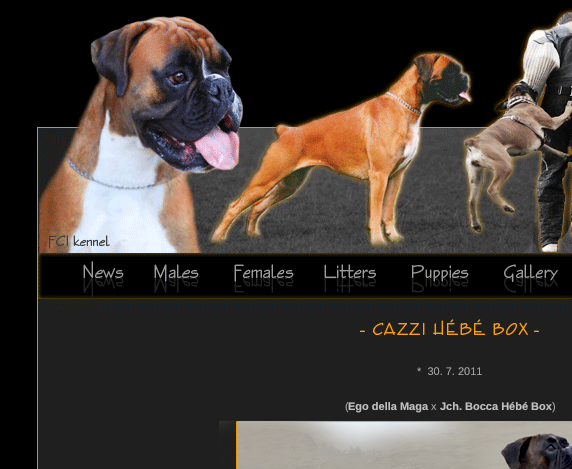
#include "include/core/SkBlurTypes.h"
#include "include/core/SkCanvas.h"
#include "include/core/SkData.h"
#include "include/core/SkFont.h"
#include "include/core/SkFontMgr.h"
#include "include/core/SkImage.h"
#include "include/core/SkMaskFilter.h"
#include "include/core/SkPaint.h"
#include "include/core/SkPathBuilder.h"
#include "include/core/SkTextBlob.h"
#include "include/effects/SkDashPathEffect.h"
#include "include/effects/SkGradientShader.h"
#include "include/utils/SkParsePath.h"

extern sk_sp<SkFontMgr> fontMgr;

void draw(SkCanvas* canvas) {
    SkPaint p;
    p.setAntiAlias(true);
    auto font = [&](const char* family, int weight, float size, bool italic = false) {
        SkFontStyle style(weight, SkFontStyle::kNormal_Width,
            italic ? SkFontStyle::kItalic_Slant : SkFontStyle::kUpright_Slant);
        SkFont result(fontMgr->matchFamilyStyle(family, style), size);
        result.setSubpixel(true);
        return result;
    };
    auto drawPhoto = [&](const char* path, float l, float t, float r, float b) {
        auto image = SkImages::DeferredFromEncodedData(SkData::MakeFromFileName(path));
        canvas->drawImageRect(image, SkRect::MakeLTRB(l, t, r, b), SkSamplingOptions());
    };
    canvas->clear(0xFF000000);
    drawPhoto("media/1.png", 37, 8, 572, 309);
    drawPhoto("media/2.png", 0, 309, 572, 469);
    drawPhoto("media/3.png", 359, 313, 539, 336);
    auto font1 = font("Liberation Sans", 400, 11);
    p.setColor(0xFFA6A6A6);
    canvas->drawString("*  30. 7. 2011", 417, 375, font1, p);
    canvas->drawString("(", 345, 410, font1, p);
    auto font2 = font("Liberation Sans", 700, 11);
    p.setColor(0xFFC3C1C1);
    canvas->drawString("Ego della Maga", 348, 410, font2, p);
    p.setColor(0xFFA6A6A6);
    canvas->drawString("x", 431, 410, font1, p);
    p.setColor(0xFFC3C1C1);
    canvas->drawString("Jch. Bocca Hébé Box", 440, 410, font2, p);
    p.setColor(0xFFA6A6A6);
    canvas->drawString(")", 552, 410, font1, p);
    drawPhoto("media/4.png", 219, 420, 572, 469);
}
